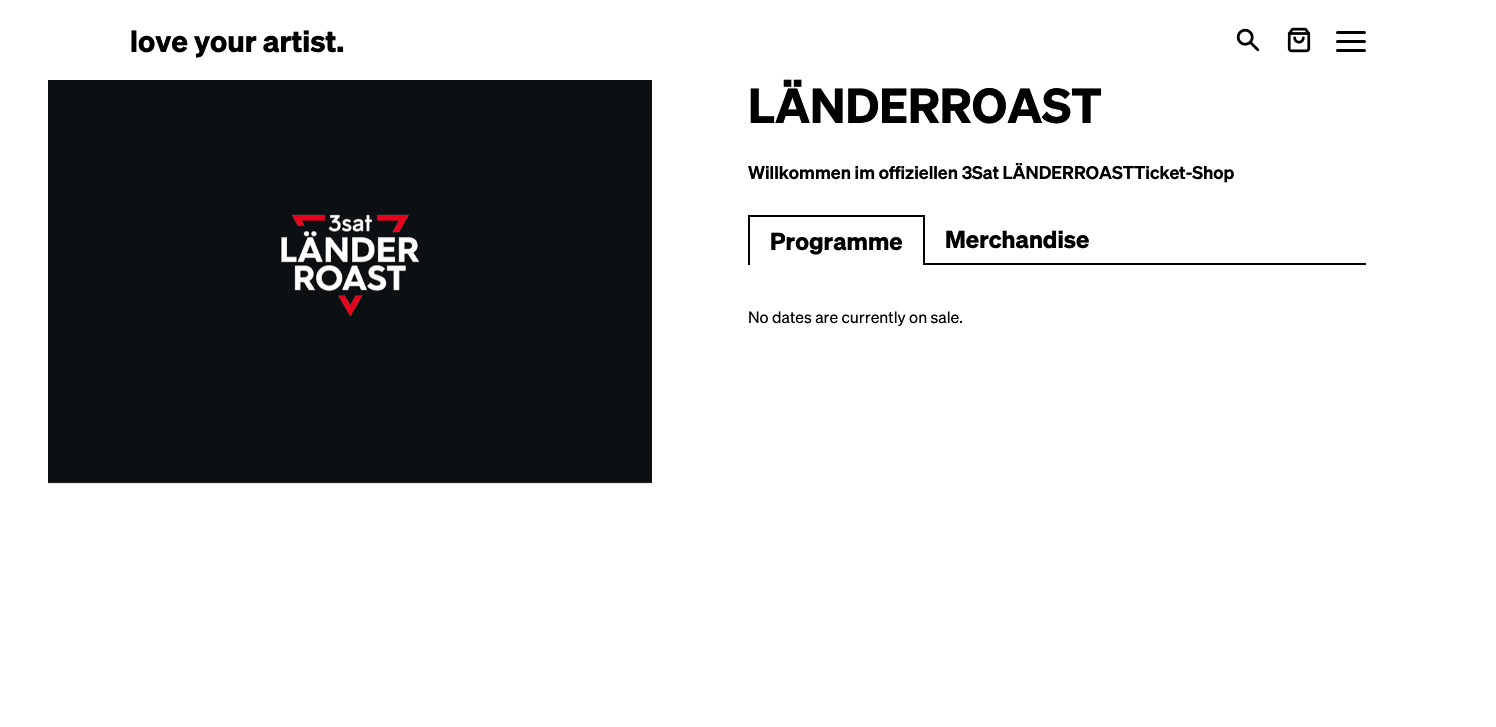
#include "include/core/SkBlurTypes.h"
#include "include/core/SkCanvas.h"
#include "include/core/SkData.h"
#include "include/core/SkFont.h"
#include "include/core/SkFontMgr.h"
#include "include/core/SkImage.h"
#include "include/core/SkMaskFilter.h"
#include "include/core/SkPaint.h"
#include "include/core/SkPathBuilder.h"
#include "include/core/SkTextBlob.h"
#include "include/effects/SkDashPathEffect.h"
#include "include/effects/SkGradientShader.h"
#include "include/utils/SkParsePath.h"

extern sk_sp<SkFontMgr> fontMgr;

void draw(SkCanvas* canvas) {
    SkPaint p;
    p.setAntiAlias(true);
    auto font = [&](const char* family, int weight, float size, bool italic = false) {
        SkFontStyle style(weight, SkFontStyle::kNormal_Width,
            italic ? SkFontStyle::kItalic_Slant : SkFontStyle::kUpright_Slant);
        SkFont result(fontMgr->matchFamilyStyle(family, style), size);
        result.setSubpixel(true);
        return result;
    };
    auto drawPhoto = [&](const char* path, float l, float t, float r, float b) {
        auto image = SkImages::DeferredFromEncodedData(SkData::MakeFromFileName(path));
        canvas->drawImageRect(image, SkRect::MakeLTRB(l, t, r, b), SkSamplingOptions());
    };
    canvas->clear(0xFFFFFFFF);
    auto font1 = font("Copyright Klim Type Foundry", 700, 30);
    p.setColor(0xFF000000);
    canvas->drawString("love your artist.", 130, 52, font1, p);
    drawPhoto("media/1.png", 1236, 28, 1260, 52);
    drawPhoto("media/2.png", 1287, 27, 1311, 53);
    canvas->drawRoundRect(SkRect::MakeLTRB(1336, 40, 1366, 43), 1.5f, 1.5f, p);
    canvas->drawRoundRect(SkRect::MakeLTRB(1336, 31, 1366, 34), 1.5f, 1.5f, p);
    canvas->drawRoundRect(SkRect::MakeLTRB(1336, 49, 1366, 52), 1.5f, 1.5f, p);
    drawPhoto("media/3.png", 48, 80, 652, 484);
    auto font2 = font("Copyright Klim Type Foundry", 700, 48);
    canvas->drawString("LÄNDERROAST", 748, 123, font2, p);
    auto font3 = font("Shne", 600, 18);
    canvas->drawString("Willkommen im offiziellen 3Sat LÄNDERROASTTicket-Shop", 748, 179, font3, p);
    {
        const struct { float l, t, r, b; SkColor color; } items[] = {
            {748, 215, 925, 217, 0xFF000000},
            {923, 215, 925, 265, 0xFF000000},
            {748, 215, 750, 265, 0xFF000000},
        };
        for (auto [l, t, r, b, color] : items) {
            p.setColor(color);
            canvas->drawRect(SkRect::MakeLTRB(l, t, r, b), p);
        }
    }
    auto font4 = font("Copyright Klim Type Foundry", 700, 24);
    canvas->drawString("Programme", 770, 250, font4, p);
    canvas->drawRect(SkRect::MakeLTRB(925, 263, 1366, 265), p);
    canvas->drawString("Merchandise", 945, 248, font4, p);
    auto font5 = font("Copyright Klim Type Foundry", 400, 16);
    canvas->drawString("No dates are currently on sale.", 748, 323, font5, p);
}
